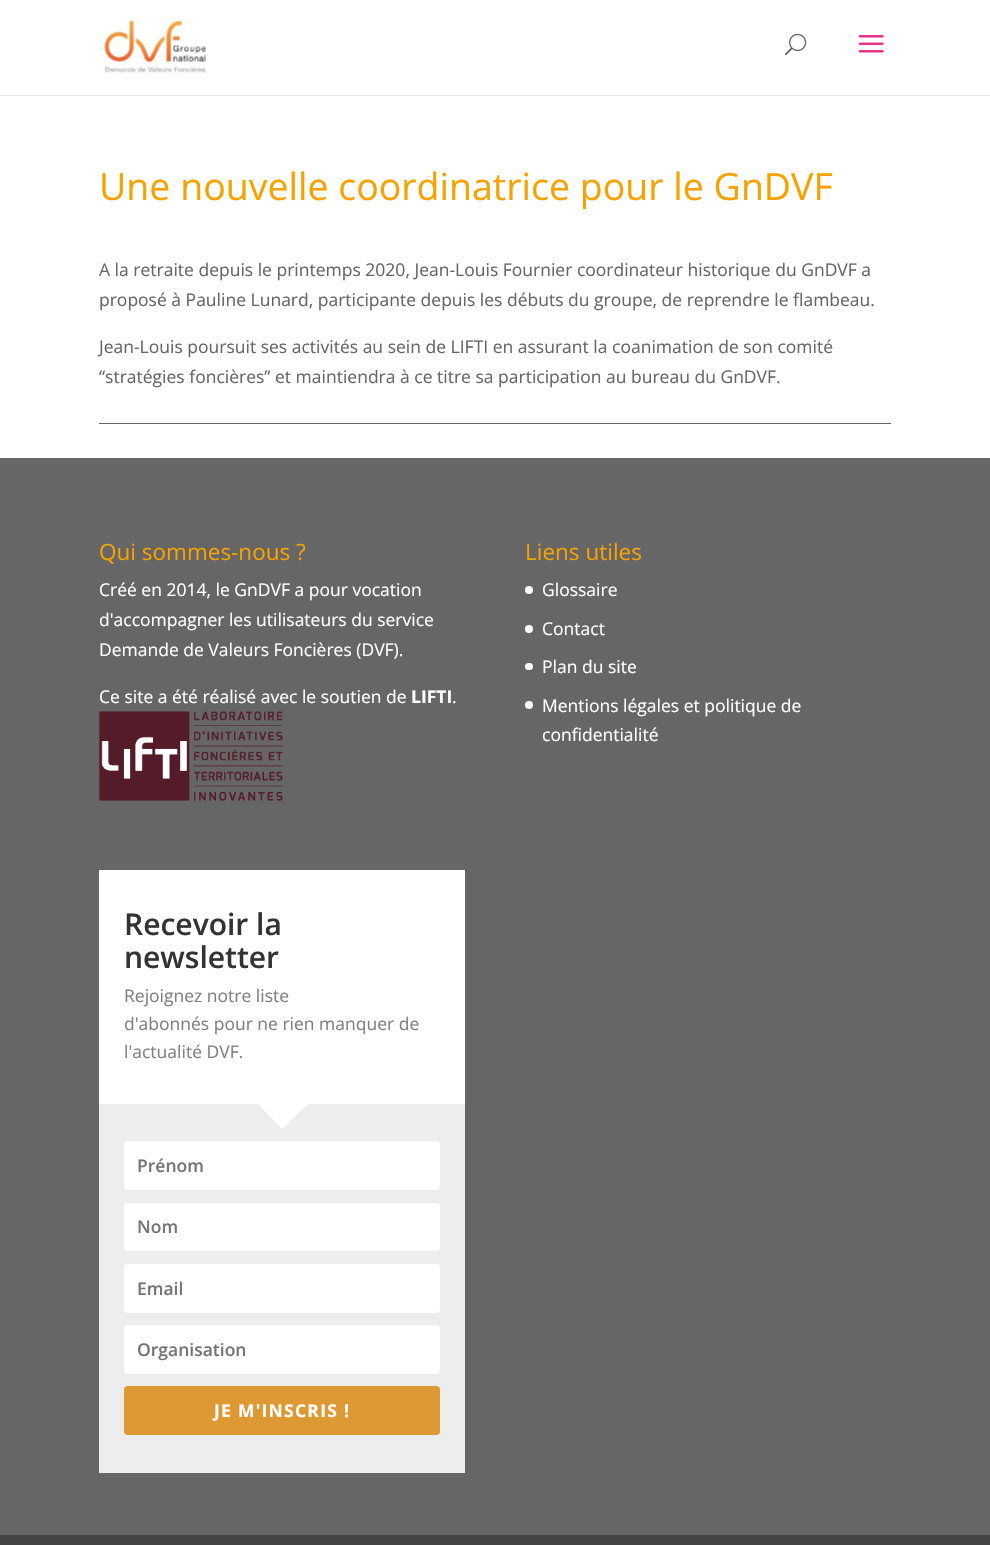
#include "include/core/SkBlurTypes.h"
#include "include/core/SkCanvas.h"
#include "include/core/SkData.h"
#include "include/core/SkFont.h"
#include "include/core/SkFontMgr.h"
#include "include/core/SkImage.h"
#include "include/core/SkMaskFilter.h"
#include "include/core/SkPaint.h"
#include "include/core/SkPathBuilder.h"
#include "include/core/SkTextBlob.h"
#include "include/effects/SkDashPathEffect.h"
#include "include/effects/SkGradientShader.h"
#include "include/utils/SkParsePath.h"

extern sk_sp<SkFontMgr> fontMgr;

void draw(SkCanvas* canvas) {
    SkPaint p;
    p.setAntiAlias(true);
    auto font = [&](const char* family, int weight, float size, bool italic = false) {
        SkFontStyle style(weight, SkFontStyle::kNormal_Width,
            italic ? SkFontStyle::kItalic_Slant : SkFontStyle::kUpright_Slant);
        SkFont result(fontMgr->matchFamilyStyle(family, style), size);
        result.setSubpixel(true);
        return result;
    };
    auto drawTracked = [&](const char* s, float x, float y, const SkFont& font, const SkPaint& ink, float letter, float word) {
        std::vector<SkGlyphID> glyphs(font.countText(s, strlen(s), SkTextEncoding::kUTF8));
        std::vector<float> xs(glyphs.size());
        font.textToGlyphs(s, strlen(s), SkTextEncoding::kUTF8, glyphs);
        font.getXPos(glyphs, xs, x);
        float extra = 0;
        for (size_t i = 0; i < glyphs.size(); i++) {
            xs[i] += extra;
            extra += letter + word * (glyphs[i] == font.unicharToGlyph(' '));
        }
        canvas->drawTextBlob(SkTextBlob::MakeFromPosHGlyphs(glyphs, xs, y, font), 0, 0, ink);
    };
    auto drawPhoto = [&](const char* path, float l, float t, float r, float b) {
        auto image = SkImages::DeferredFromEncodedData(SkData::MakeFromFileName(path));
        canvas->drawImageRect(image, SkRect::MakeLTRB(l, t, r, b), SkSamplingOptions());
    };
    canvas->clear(0xFFFFFFFF);
    p.setColor(0xFFE6E6E6);
    canvas->drawRect(SkRect::MakeLTRB(0, 95, 990, 96), p);
    drawPhoto("media/1.png", 103, 18, 206, 73);
    drawPhoto("media/2.png", 785, 33, 807, 56);
    drawPhoto("media/3.png", 858, 35, 884, 53);
    p.setColor(0xFF666666);
    canvas->drawRect(SkRect::MakeLTRB(99, 423, 891, 424), p);
    auto font1 = font("Open Sans", 400, 37.5f);
    p.setColor(0xFFF6A301);
    canvas->drawString("Une nouvelle coordinatrice pour le GnDVF", 99, 200, font1, p);
    auto font2 = font("Open Sans", 400, 17.5f);
    p.setColor(0xFF666666);
    {
        const struct { const char* s; float x, y; } items[] = {
            {"A la retraite depuis le printemps 2020, Jean-Louis Fournier coordinateur historique du GnDVF a", 99, 276},
            {"proposé à Pauline Lunard, participante depuis les débuts du groupe, de reprendre le flambeau.", 99, 306},
            {"Jean-Louis poursuit ses activités au sein de LIFTI en assurant la coanimation de son comité", 99, 353},
            {"“stratégies foncières” et maintiendra à ce titre sa participation au bureau du GnDVF.", 99, 383},
        };
        for (auto [s, x, y] : items) {
            canvas->drawString(s, x, y, font2, p);
        }
    }
    canvas->drawRect(SkRect::MakeLTRB(0, 458, 990, 1535), p);
    auto font3 = font("Open Sans", 400, 22.5f);
    p.setColor(0xFFF6A301);
    canvas->drawString("Qui sommes-nous ?", 99, 560, font3, p);
    p.setColor(0xFFFFFFFF);
    {
        const struct { const char* s; float x, y; } items[] = {
            {"Créé en 2014, le GnDVF a pour vocation", 99, 596},
            {"d'accompagner les utilisateurs du service", 99, 626},
            {"Demande de Valeurs Foncières (DVF).", 99, 656},
            {"Ce site a été réalisé avec le soutien de", 99, 703},
        };
        for (auto [s, x, y] : items) {
            canvas->drawString(s, x, y, font2, p);
        }
    }
    auto font4 = font("Open Sans", 700, 17.5f);
    canvas->drawString("LIFTI", 411, 703, font4, p);
    canvas->drawString(".", 452, 703, font2, p);
    drawPhoto("media/4.png", 98, 711, 283, 801);
    p.setColor(0xFFF6A301);
    canvas->drawString("Liens utiles", 525, 560, font3, p);
    p.setColor(0xFFFFFFFF);
    canvas->drawCircle(529, 590, 4, p);
    canvas->drawString("Glossaire", 542, 596, font2, p);
    canvas->drawCircle(529, 629, 4, p);
    canvas->drawString("Contact", 542, 635, font2, p);
    canvas->drawRoundRect(SkRect::MakeLTRB(525, 663, 533, 670), 3.5f, 3.5f, p);
    canvas->drawString("Plan du site", 542, 673, font2, p);
    canvas->drawCircle(529, 705, 4, p);
    canvas->drawString("Mentions légales et politique de", 542, 712, font2, p);
    canvas->drawString("confidentialité", 542, 741, font2, p);
    canvas->drawRect(SkRect::MakeLTRB(99, 870, 465, 1104), p);
    auto font5 = font("Open Sans", 600, 30);
    p.setColor(0xFF333333);
    canvas->drawString("Recevoir la", 124, 935, font5, p);
    canvas->drawString("newsletter", 124, 968, font5, p);
    p.setColor(0xFF808080);
    {
        const struct { const char* s; float x, y; } items[] = {
            {"Rejoignez notre liste", 124, 1002},
            {"d'abonnés pour ne rien manquer de", 124, 1030},
            {"l'actualité DVF.", 124, 1058},
        };
        for (auto [s, x, y] : items) {
            canvas->drawString(s, x, y, font2, p);
        }
    }
    p.setColor(0xFFEDEDED);
    canvas->drawRect(SkRect::MakeLTRB(99, 1104, 465, 1473), p);
    p.setColor(0xFFFFFFFF);
    canvas->drawPath(SkPathBuilder().moveTo(258, 1104).lineTo(308, 1104).lineTo(282, 1129).close().detach(), p);
    canvas->drawRoundRect(SkRect::MakeLTRB(124, 1141, 440, 1190), 4, 4, p);
    auto font6 = font("Open Sans", 600, 17.5f);
    p.setColor(0xFF757575);
    canvas->drawString("Prénom", 137, 1172, font6, p);
    p.setColor(0xFFFFFFFF);
    canvas->drawRoundRect(SkRect::MakeLTRB(124, 1203, 440, 1251), 4, 4, p);
    p.setColor(0xFF757575);
    canvas->drawString("Nom", 137, 1233, font6, p);
    p.setColor(0xFFFFFFFF);
    canvas->drawRoundRect(SkRect::MakeLTRB(124, 1264, 440, 1313), 4, 4, p);
    p.setColor(0xFF757575);
    canvas->drawString("Email", 137, 1295, font6, p);
    p.setColor(0xFFFFFFFF);
    canvas->drawRoundRect(SkRect::MakeLTRB(124, 1325, 440, 1374), 4, 4, p);
    p.setColor(0xFF757575);
    canvas->drawString("Organisation", 137, 1356, font6, p);
    p.setColor(0xFFDD9933);
    canvas->drawRoundRect(SkRect::MakeLTRB(124, 1386, 440, 1435), 4, 4, p);
    p.setColor(0xFFFFFFFF);
    drawTracked("JE M'INSCRIS !", 214, 1417, font4, p, 1.25f, 0);
    p.setColor(0xFF454545);
    canvas->drawRect(SkRect::MakeLTRB(0, 1535, 990, 1545), p);
}
